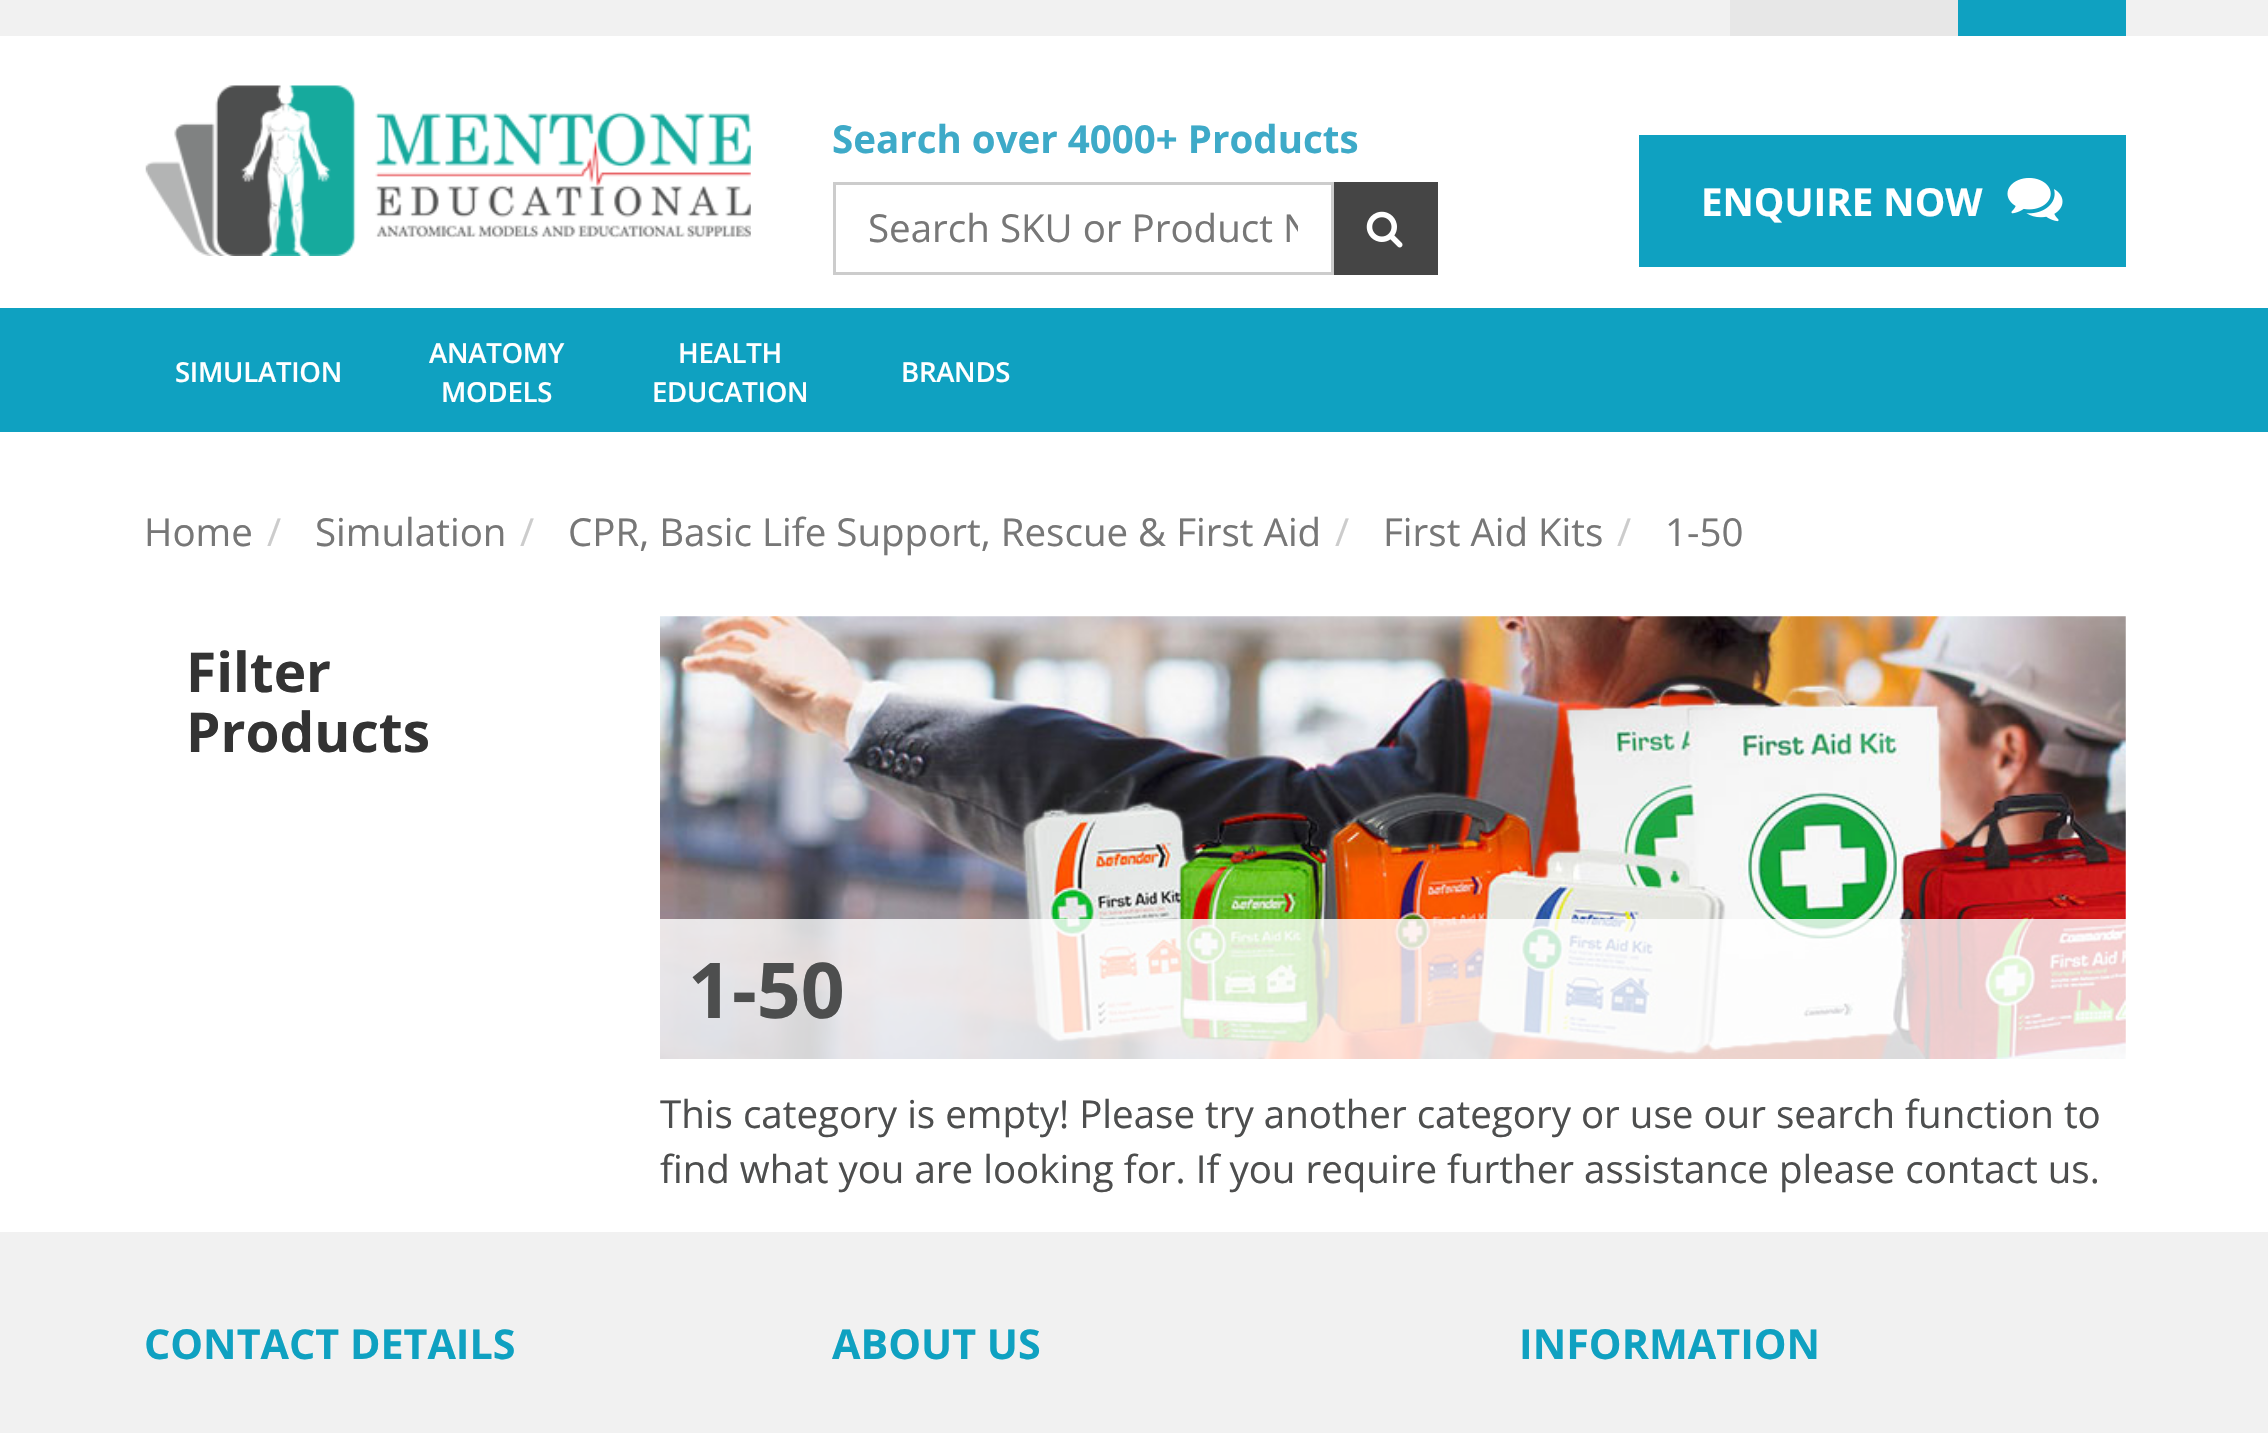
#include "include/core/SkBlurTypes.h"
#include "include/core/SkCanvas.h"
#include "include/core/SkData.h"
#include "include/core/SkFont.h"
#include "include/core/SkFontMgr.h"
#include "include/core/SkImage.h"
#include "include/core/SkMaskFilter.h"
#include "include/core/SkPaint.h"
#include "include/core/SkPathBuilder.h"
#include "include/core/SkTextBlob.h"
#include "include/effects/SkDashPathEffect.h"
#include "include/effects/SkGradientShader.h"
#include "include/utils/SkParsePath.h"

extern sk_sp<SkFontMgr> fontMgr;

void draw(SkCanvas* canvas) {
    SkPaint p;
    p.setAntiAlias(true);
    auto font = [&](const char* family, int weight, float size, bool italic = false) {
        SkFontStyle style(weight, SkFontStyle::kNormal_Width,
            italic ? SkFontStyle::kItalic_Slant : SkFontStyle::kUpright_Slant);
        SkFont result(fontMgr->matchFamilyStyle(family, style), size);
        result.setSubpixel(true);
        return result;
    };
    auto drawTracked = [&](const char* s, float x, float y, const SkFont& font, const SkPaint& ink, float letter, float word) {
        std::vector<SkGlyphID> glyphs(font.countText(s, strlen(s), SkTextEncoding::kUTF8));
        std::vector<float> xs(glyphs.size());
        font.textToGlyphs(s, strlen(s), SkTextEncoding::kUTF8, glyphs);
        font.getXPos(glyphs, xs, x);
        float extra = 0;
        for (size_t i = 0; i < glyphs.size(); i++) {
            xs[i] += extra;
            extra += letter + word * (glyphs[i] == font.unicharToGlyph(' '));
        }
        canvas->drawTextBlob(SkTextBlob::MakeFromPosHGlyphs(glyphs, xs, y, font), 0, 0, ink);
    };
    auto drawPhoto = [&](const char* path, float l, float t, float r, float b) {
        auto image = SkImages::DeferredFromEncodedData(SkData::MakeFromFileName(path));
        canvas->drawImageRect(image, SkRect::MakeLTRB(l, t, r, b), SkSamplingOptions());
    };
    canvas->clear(0xFFFFFFFF);
    {
        const struct { float l, t, r, b; SkColor color; } items[] = {
            {0, 0, 2268, 36, 0xFFF1F1F1},
            {1730, 0, 1958, 36, 0xFFE7E7E7},
            {1958, 0, 2126, 36, 0xFF0FA1C1},
        };
        for (auto [l, t, r, b, color] : items) {
            p.setColor(color);
            canvas->drawRect(SkRect::MakeLTRB(l, t, r, b), p);
        }
    }
    drawPhoto("media/1.png", 145, 85, 751, 256);
    auto font1 = font("Open Sans", 700, 38.5f);
    p.setColor(0xFF3EAAC8);
    canvas->drawString("Search over 4000+ Products", 832, 153, font1, p);
    p.setStyle(SkPaint::kStroke_Style);
    p.setStrokeWidth(3);
    p.setColor(0xFFCCCCCC);
    canvas->drawRect(SkRect::MakeLTRB(834.5f, 183.5f, 1332.5f, 273.5f), p);
    canvas->save();
    canvas->clipRect(SkRect::MakeLTRB(869, 201, 1298, 253));
    auto font2 = font("Open Sans", 400, 38.5f);
    p.setStyle(SkPaint::kFill_Style);
    p.setColor(0xFF777777);
    canvas->drawString("Search SKU or Product N", 868, 242, font2, p);
    canvas->restore();
    p.setColor(0xFF454545);
    canvas->drawRect(SkRect::MakeLTRB(1334, 182, 1438, 275), p);
    drawPhoto("media/2.png", 1366, 211, 1403, 248);
    p.setColor(0xFF0FA1C1);
    canvas->drawRect(SkRect::MakeLTRB(1639, 135, 2126, 267), p);
    p.setColor(0xFFFFFFFF);
    canvas->drawString("ENQUIRE NOW", 1701, 216, font1, p);
    drawPhoto("media/3.png", 2007, 178, 2063, 222);
    p.setColor(0xFF0FA1C1);
    canvas->drawRect(SkRect::MakeLTRB(0, 308, 2268, 432), p);
    auto font3 = font("Open Sans", 600, 27.5f);
    p.setColor(0xFFFFFFFF);
    {
        const struct { const char* s; float x, y; } items[] = {
            {"SIMULATION", 175, 382},
            {"ANATOMY", 429, 363},
            {"MODELS", 441, 402},
            {"HEALTH", 678, 363},
            {"EDUCATION", 652, 402},
            {"BRANDS", 901, 382},
        };
        for (auto [s, x, y] : items) {
            drawTracked(s, x, y, font3, p, -0.25f, 0);
        }
    }
    p.setColor(0xFF777777);
    canvas->drawString("Home", 144, 546, font2, p);
    p.setColor(0xFFCCCCCC);
    canvas->drawString("/", 267, 546, font2, p);
    p.setColor(0xFF777777);
    canvas->drawString("Simulation", 315, 546, font2, p);
    p.setColor(0xFFCCCCCC);
    canvas->drawString("/", 520, 546, font2, p);
    p.setColor(0xFF777777);
    canvas->drawString("CPR, Basic Life Support, Rescue & First Aid", 568, 546, font2, p);
    p.setColor(0xFFCCCCCC);
    canvas->drawString("/", 1335, 546, font2, p);
    p.setColor(0xFF777777);
    canvas->drawString("First Aid Kits", 1383, 546, font2, p);
    p.setColor(0xFFCCCCCC);
    canvas->drawString("/", 1617, 546, font2, p);
    p.setColor(0xFF777777);
    canvas->drawString("1-50", 1665, 546, font2, p);
    auto font4 = font("Open Sans", 700, 55);
    p.setColor(0xFF333333);
    canvas->drawString("Filter", 186, 692, font4, p);
    canvas->drawString("Products", 186, 752, font4, p);
    drawPhoto("media/4.png", 660, 616, 2126, 1059);
    p.setColor(0xCCFFFFFF);
    canvas->drawRect(SkRect::MakeLTRB(660, 919, 2126, 1059), p);
    auto font5 = font("Open Sans", 700, 77);
    p.setColor(0xFF4D4E4E);
    canvas->drawString("1-50", 688, 1018, font5, p);
    canvas->drawString("This category is empty! Please try another category or use our search function to", 660, 1128, font2, p);
    canvas->drawString("find what you are looking for. If you require further assistance please contact us.", 660, 1183, font2, p);
    p.setColor(0xFFF1F1F1);
    canvas->drawRect(SkRect::MakeLTRB(0, 1232, 2268, 1433), p);
    auto font6 = font("Open Sans", 700, 41.25f);
    p.setColor(0xFF0FA1C1);
    {
        const struct { const char* s; float x, y; } items[] = {
            {"CONTACT DETAILS", 144, 1359},
            {"ABOUT US", 832, 1359},
            {"INFORMATION", 1519, 1359},
        };
        for (auto [s, x, y] : items) {
            canvas->drawString(s, x, y, font6, p);
        }
    }
}
